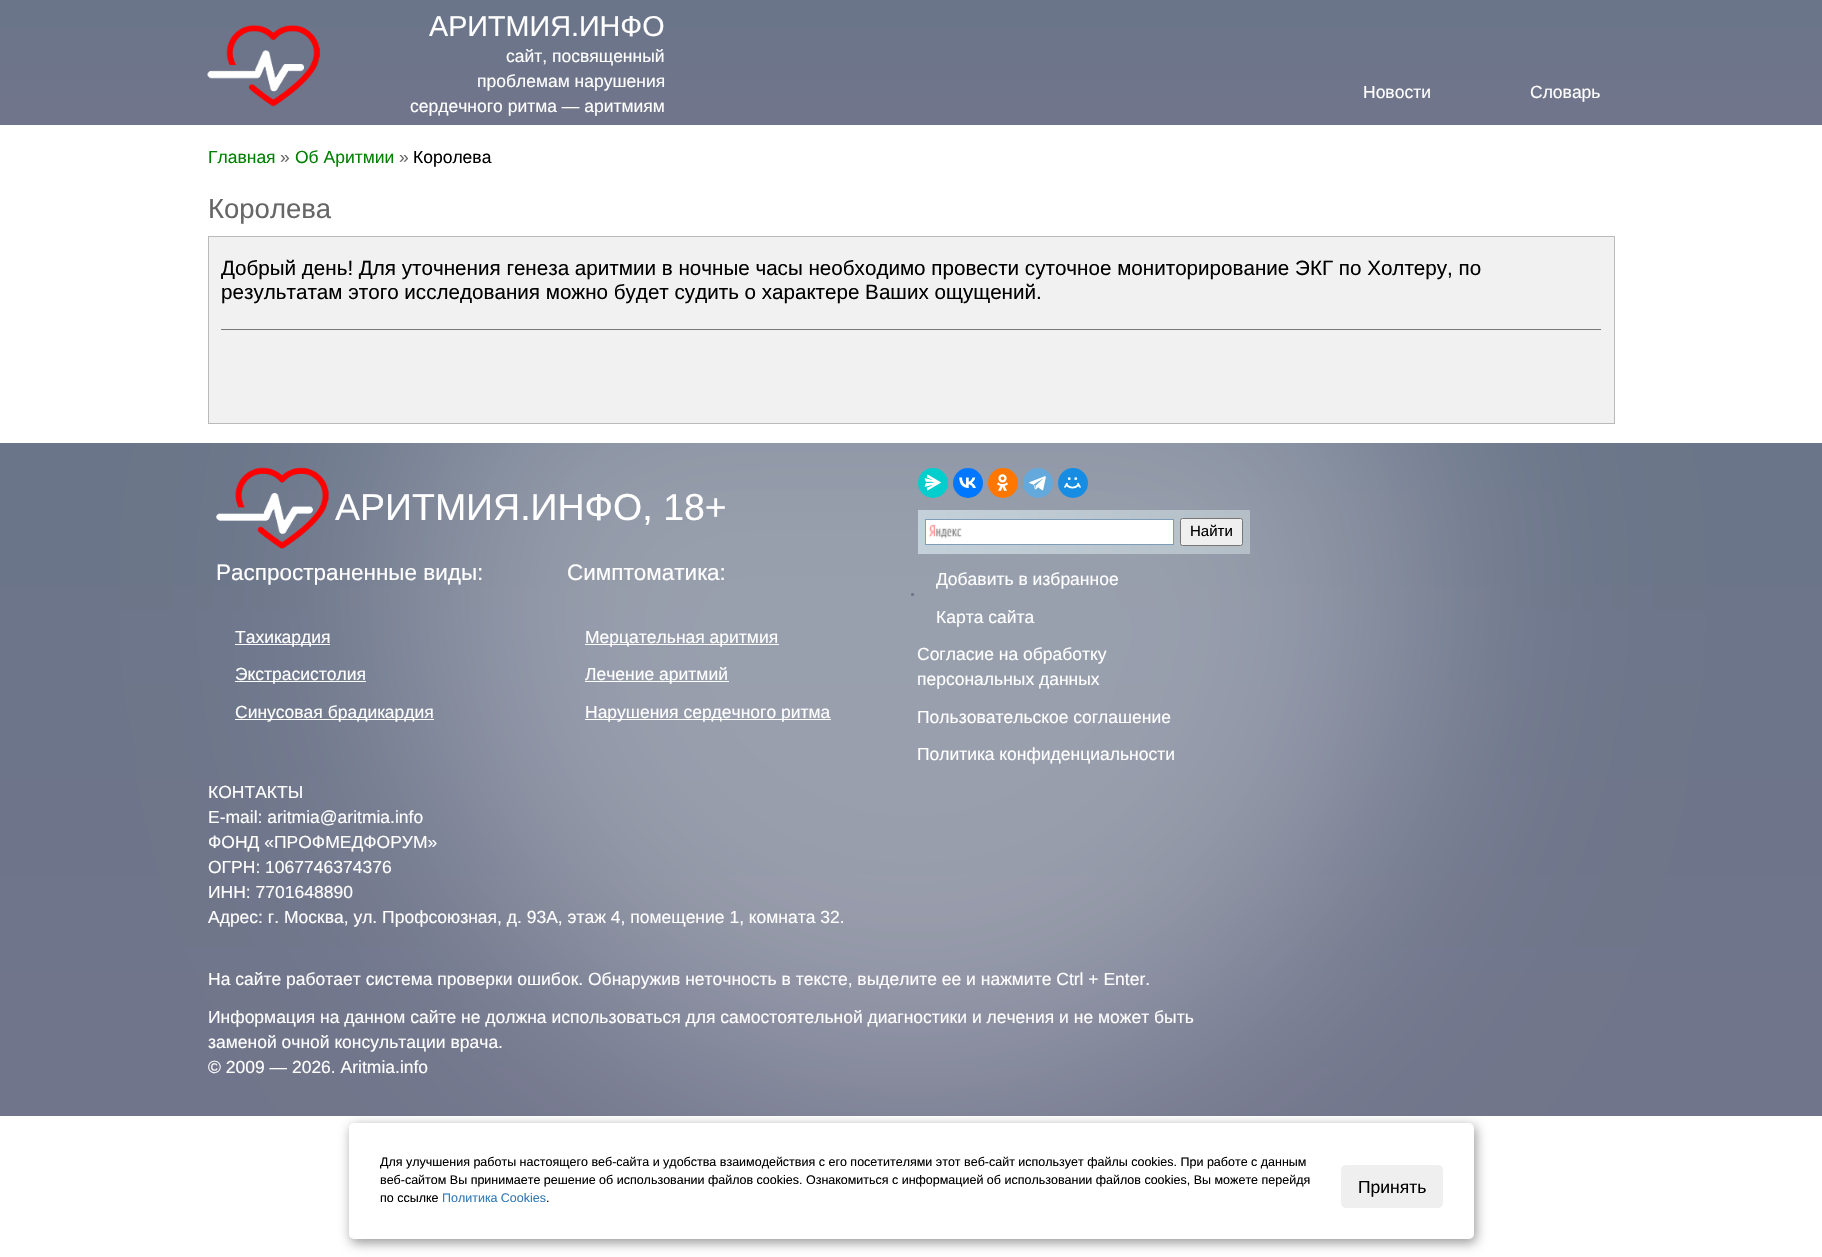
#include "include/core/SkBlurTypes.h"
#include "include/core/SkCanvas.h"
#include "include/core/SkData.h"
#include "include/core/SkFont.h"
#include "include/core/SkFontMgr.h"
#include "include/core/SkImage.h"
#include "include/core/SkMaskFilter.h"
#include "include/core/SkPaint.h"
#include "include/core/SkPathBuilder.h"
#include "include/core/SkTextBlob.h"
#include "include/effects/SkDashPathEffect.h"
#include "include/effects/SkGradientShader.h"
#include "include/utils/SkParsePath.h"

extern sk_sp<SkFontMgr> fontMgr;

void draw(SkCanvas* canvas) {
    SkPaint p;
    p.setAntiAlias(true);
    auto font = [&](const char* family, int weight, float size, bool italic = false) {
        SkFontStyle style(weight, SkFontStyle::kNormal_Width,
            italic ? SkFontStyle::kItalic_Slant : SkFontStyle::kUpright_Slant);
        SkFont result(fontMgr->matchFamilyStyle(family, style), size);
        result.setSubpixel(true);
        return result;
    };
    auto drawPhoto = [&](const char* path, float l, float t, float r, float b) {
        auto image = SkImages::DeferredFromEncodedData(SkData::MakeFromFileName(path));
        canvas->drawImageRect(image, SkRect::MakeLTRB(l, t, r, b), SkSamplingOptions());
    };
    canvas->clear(0xFFFFFFFF);
    {
        const SkColor colors[] = {0xFF6A7589, 0xFF71758B};
        const float stops[] = {0, 1};
        const SkPoint ends[] = {{911, 0}, {911, 125}};
        p.setShader(SkGradientShader::MakeLinear(ends, colors, stops, 2, SkTileMode::kClamp));
        p.setAlpha(255);
    }
    canvas->drawRect(SkRect::MakeLTRB(0, 0, 1822, 125), p);
    drawPhoto("media/1.png", 207, 25, 320, 107);
    auto font1 = font("Liberation Sans", 400, 28.75f);
    p.setShader(nullptr);
    p.setColor(0xFFFFFFFF);
    canvas->drawString("АРИТМИЯ.ИНФО", 429, 36, font1, p);
    auto font2 = font("Liberation Sans", 400, 17.5f);
    {
        const struct { const char* s; float x, y; } items[] = {
            {"сайт, посвященный", 506, 62},
            {"проблемам нарушения", 477, 87},
            {"сердечного ритма — аритмиям", 410, 112},
            {"Новости", 1363, 98},
            {"Словарь", 1530, 98},
        };
        for (auto [s, x, y] : items) {
            canvas->drawString(s, x, y, font2, p);
        }
    }
    p.setColor(0xFF008000);
    canvas->drawString("Главная", 208, 163, font2, p);
    p.setColor(0xFF666666);
    canvas->drawString("»", 280, 163, font2, p);
    p.setColor(0xFF008000);
    canvas->drawString("Об Аритмии", 295, 163, font2, p);
    p.setColor(0xFF666666);
    canvas->drawString("»", 399, 163, font2, p);
    p.setColor(0xFF000000);
    canvas->drawString("Королева", 413, 163, font2, p);
    auto font3 = font("Liberation Sans", 400, 27.5f);
    p.setColor(0xFF666666);
    canvas->drawString("Королева", 208, 218, font3, p);
    p.setColor(0xFFF1F1F1);
    canvas->drawRect(SkRect::MakeLTRB(208.5f, 236.5f, 1614.5f, 423.5f), p);
    p.setStyle(SkPaint::kStroke_Style);
    p.setStrokeWidth(1);
    p.setColor(0xFFBABABA);
    canvas->drawRect(SkRect::MakeLTRB(208.5f, 236.5f, 1614.5f, 423.5f), p);
    p.setStyle(SkPaint::kFill_Style);
    p.setColor(0xFF797878);
    canvas->drawRect(SkRect::MakeLTRB(221, 329, 1601, 330), p);
    auto font4 = font("Liberation Sans", 400, 20.62f);
    p.setColor(0xFF000000);
    canvas->drawString("Добрый день! Для уточнения генеза аритмии в ночные часы необходимо провести суточное мониторирование ЭКГ по Холтеру, по", 221, 275, font4, p);
    canvas->drawString("результатам этого исследования можно будет судить о характере Ваших ощущений.", 221, 299, font4, p);
    {
        const SkColor colors[] = {0xFF6A7589, 0xFF71758B};
        const float stops[] = {0, 1};
        const SkPoint ends[] = {{911, 442}, {911, 1116}};
        p.setShader(SkGradientShader::MakeLinear(ends, colors, stops, 2, SkTileMode::kClamp));
        p.setAlpha(255);
    }
    canvas->drawRect(SkRect::MakeLTRB(0, 443, 1822, 1116), p);
    canvas->save();
    canvas->clipRect(SkRect::MakeLTRB(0, 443, 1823, 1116));
    canvas->clipPath(SkPathBuilder(SkPathFillType::kEvenOdd).moveTo(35, 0).lineTo(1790, 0).lineTo(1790, 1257).lineTo(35, 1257).close().moveTo(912.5f, 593).cubicTo(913.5f, 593, 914, 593.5f, 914, 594.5f).cubicTo(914, 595.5f, 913.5f, 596, 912.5f, 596).cubicTo(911.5f, 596, 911, 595.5f, 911, 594.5f).cubicTo(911, 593.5f, 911.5f, 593, 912.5f, 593).close().detach(), true);
    p.setShader(nullptr);
    p.setColor(0x4DFFFFFF);
    p.setMaskFilter(SkMaskFilter::MakeBlur(kNormal_SkBlurStyle, 125));
    canvas->drawRoundRect(SkRect::MakeLTRB(411, 93, 1414, 1095), 501, 501, p);
    p.setMaskFilter(nullptr);
    canvas->restore();
    drawPhoto("media/2.png", 216, 467, 329, 549);
    auto font5 = font("Liberation Sans", 400, 37.5f);
    p.setColor(0xFFFFFFFF);
    canvas->drawString("АРИТМИЯ.ИНФО, 18+", 335, 520, font5, p);
    auto font6 = font("Liberation Sans", 400, 22.5f);
    canvas->drawString("Распространенные виды:", 216, 580, font6, p);
    canvas->drawRect(SkRect::MakeLTRB(235, 644, 330, 645), p);
    canvas->drawString("Тахикардия", 235, 643, font2, p);
    canvas->drawRect(SkRect::MakeLTRB(235, 681, 366, 682), p);
    canvas->drawString("Экстрасистолия", 235, 680, font2, p);
    canvas->drawRect(SkRect::MakeLTRB(235, 719, 434, 720), p);
    canvas->drawString("Синусовая брадикардия", 235, 718, font2, p);
    canvas->drawString("Симптоматика:", 567, 580, font6, p);
    canvas->drawRect(SkRect::MakeLTRB(585, 644, 779, 645), p);
    canvas->drawString("Мерцательная аритмия", 585, 643, font2, p);
    canvas->drawRect(SkRect::MakeLTRB(585, 681, 729, 682), p);
    canvas->drawString("Лечение аритмий", 585, 680, font2, p);
    canvas->drawRect(SkRect::MakeLTRB(585, 719, 831, 720), p);
    canvas->drawString("Нарушения сердечного ритма", 585, 718, font2, p);
    p.setColor(0xFF03CECE);
    canvas->drawCircle(933, 483, 15, p);
    drawPhoto("media/3.png", 924, 474, 941, 491);
    p.setColor(0xFF0077FF);
    canvas->drawCircle(968, 483, 15, p);
    drawPhoto("media/4.png", 959, 477, 976, 488);
    p.setColor(0xFFFF7700);
    canvas->drawCircle(1003, 483, 15, p);
    drawPhoto("media/5.png", 997, 474, 1009, 491);
    p.setColor(0xFF64A9DC);
    canvas->drawCircle(1038, 483, 15, p);
    drawPhoto("media/6.png", 1029, 476, 1046, 491);
    p.setColor(0xFF168DE2);
    canvas->drawCircle(1073, 483, 15, p);
    drawPhoto("media/7.png", 1064, 477, 1081, 489);
    {
        const SkColor colors[] = {0xFFC5D1DA, 0xFFB3BEC7};
        const float stops[] = {0, 1};
        const SkPoint ends[] = {{918, 532}, {1250, 532}};
        p.setShader(SkGradientShader::MakeLinear(ends, colors, stops, 2, SkTileMode::kClamp));
        p.setAlpha(255);
    }
    canvas->drawRect(SkRect::MakeLTRB(918, 510, 1250, 554), p);
    p.setShader(nullptr);
    p.setColor(0xFFFFFFFF);
    canvas->drawRect(SkRect::MakeLTRB(926, 520, 1173, 544), p);
    drawPhoto("media/8.png", 928, 525, 962, 539);
    p.setStyle(SkPaint::kStroke_Style);
    p.setColor(0xFF7F9DB9);
    canvas->drawRect(SkRect::MakeLTRB(925.5f, 519.5f, 1173.5f, 544.5f), p);
    p.setStyle(SkPaint::kFill_Style);
    p.setColor(0xFFEFEFEF);
    canvas->drawRoundRect(SkRect::MakeLTRB(1180.5f, 518.5f, 1242.5f, 545.5f), 2, 2, p);
    p.setStyle(SkPaint::kStroke_Style);
    p.setColor(0xFF767676);
    canvas->drawRoundRect(SkRect::MakeLTRB(1180.5f, 518.5f, 1242.5f, 545.5f), 2, 2, p);
    auto font7 = font("Liberation Sans", 400, 15);
    p.setStyle(SkPaint::kFill_Style);
    p.setColor(0xFF000000);
    canvas->drawString("Найти", 1190, 536, font7, p);
    p.setColor(0xFFFFFFFF);
    {
        const struct { const char* s; float x, y; } items[] = {
            {"Добавить в избранное", 936, 585},
            {"Карта сайта", 936, 623},
            {"Согласие на обработку", 917, 660},
            {"персональных данных", 917, 685},
            {"Пользовательское соглашение", 917, 723},
            {"Политика конфиденциальности", 917, 760},
            {"КОНТАКТЫ", 208, 798},
            {"E-mail: aritmia@aritmia.info", 208, 823},
            {"ФОНД «ПРОФМЕДФОРУМ»", 208, 848},
            {"ОГРН: 1067746374376", 208, 873},
            {"ИНН: 7701648890", 208, 898},
            {"Адрес: г. Москва, ул. Профсоюзная, д. 93А, этаж 4, помещение 1, комната 32.", 208, 923},
            {"На сайте работает система проверки ошибок. Обнаружив неточность в тексте, выделите ее и нажмите Ctrl + Enter.", 208, 985},
            {"Информация на данном сайте не должна использоваться для самостоятельной диагностики и лечения и не может быть", 208, 1023},
            {"заменой очной консультации врача.", 208, 1048},
            {"© 2009 — 2026. Aritmia.info", 208, 1073},
        };
        for (auto [s, x, y] : items) {
            canvas->drawString(s, x, y, font2, p);
        }
    }
    p.setColor(0x66000000);
    p.setMaskFilter(SkMaskFilter::MakeBlur(kNormal_SkBlurStyle, 6));
    canvas->drawRoundRect(SkRect::MakeLTRB(351, 1126, 1476, 1243), 5, 5, p);
    p.setMaskFilter(nullptr);
    p.setColor(0xFFFFFFFF);
    canvas->drawRoundRect(SkRect::MakeLTRB(349, 1123, 1474, 1239), 5, 5, p);
    auto font8 = font("Liberation Sans", 400, 12.5f);
    p.setColor(0xFF000000);
    {
        const struct { const char* s; float x, y; } items[] = {
            {"Для улучшения работы настоящего веб-сайта и удобства взаимодействия с его посетителями этот веб-сайт использует файлы cookies. При работе с данным", 380, 1166},
            {"веб-сайтом Вы принимаете решение об использовании файлов cookies. Ознакомиться с информацией об использовании файлов cookies, Вы можете перейдя", 380, 1184},
            {"по ссылке", 380, 1202},
        };
        for (auto [s, x, y] : items) {
            canvas->drawString(s, x, y, font8, p);
        }
    }
    p.setColor(0xFF337AB7);
    canvas->drawString("Политика Cookies", 442, 1202, font8, p);
    p.setColor(0xFF000000);
    canvas->drawString(".", 546, 1202, font8, p);
    p.setColor(0xFFEFEFEF);
    canvas->drawRoundRect(SkRect::MakeLTRB(1341, 1165, 1443, 1208), 5, 5, p);
    p.setColor(0xFF000000);
    canvas->drawString("Принять", 1358, 1193, font2, p);
}
